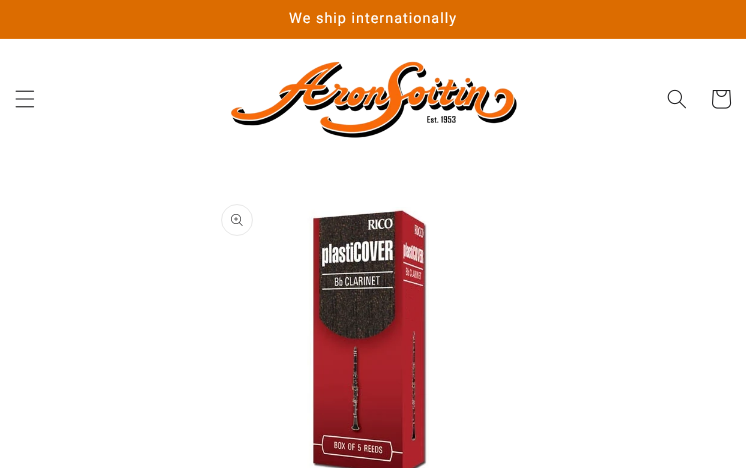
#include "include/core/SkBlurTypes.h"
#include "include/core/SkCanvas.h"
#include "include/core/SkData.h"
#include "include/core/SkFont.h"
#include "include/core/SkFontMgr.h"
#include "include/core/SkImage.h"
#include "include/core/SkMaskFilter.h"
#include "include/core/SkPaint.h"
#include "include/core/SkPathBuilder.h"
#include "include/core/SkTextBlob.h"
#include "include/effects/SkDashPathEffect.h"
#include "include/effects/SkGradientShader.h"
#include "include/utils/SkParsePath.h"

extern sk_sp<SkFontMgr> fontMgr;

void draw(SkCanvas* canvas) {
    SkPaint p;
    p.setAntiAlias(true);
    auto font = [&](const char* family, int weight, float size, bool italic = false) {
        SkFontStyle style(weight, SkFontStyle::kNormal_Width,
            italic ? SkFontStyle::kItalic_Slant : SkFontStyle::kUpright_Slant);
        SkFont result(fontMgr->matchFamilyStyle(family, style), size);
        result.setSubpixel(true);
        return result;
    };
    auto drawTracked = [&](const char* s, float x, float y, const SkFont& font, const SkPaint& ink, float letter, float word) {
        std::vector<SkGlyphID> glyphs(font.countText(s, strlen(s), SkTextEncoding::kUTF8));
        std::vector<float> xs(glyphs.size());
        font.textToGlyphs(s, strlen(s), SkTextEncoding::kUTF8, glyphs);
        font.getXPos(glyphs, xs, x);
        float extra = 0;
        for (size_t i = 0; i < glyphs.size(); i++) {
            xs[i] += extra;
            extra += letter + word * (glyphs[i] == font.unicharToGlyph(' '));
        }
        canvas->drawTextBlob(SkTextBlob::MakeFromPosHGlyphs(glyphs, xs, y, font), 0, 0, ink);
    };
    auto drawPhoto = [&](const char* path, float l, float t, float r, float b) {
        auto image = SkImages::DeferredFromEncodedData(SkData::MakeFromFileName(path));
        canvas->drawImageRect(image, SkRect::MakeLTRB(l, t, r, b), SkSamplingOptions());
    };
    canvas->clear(0xFFFFFFFF);
    p.setColor(0xFFDC6C00);
    canvas->drawRect(SkRect::MakeLTRB(0, 0, 746, 38), p);
    p.setColor(0xFFDF7814);
    canvas->drawRect(SkRect::MakeLTRB(0, 38, 746, 39), p);
    auto font1 = font("Roboto", 400, 14.4f);
    p.setColor(0xFFFFFFFF);
    drawTracked("We ship internationally", 289, 23, font1, p, 1, 0);
    drawPhoto("media/1.png", 15, 90, 35, 108);
    drawPhoto("media/2.png", 230, 61, 517, 138);
    drawPhoto("media/3.png", 667, 89, 686, 109);
    drawPhoto("media/4.png", 712, 90, 732, 109);
    p.setStyle(SkPaint::kStroke_Style);
    p.setStrokeWidth(1);
    p.setColor(0xFFE9E9E9);
    canvas->drawCircle(237, 220, 15.5f, p);
    drawPhoto("media/5.png", 231, 214, 243, 226);
    drawPhoto("media/6.png", 307, 207, 429, 468);
}
